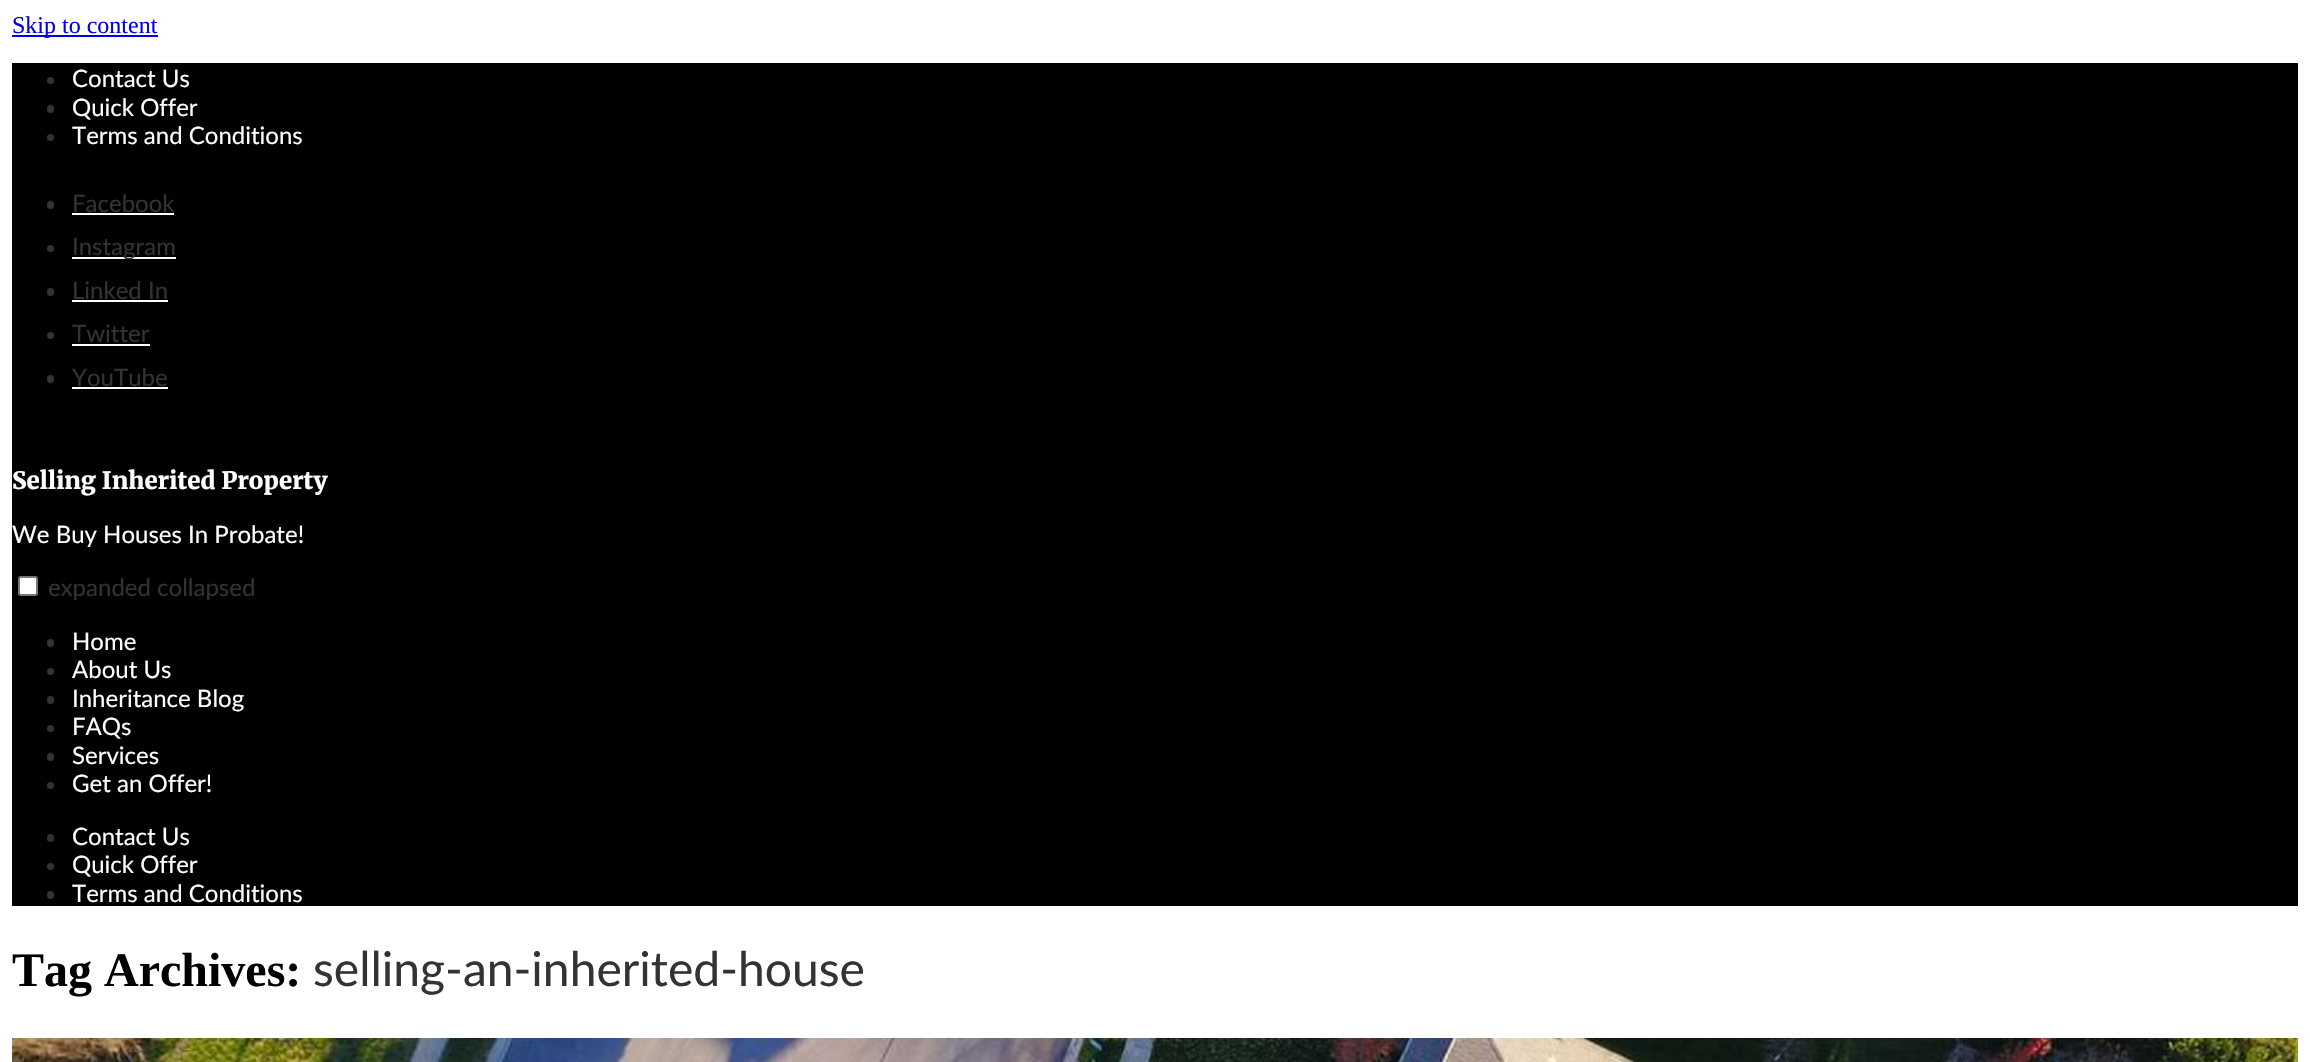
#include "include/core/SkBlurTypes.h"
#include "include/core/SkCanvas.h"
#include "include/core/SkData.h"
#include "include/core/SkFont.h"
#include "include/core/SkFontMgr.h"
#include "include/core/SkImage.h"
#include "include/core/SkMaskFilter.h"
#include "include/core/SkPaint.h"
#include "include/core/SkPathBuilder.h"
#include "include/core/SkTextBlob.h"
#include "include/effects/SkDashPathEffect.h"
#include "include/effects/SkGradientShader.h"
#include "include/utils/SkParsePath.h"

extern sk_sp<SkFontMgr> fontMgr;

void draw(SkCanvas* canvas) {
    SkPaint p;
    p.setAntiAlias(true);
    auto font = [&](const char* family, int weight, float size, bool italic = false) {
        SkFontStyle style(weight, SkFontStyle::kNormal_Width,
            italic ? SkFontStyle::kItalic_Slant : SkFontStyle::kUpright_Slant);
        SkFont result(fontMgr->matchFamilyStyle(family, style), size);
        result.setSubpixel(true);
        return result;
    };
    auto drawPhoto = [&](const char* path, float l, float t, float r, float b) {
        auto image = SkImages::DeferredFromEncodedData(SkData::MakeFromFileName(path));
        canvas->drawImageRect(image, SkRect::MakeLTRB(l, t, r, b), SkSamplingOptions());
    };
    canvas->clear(0xFFFFFFFF);
    p.setColor(0xFF0000EE);
    canvas->drawRect(SkRect::MakeLTRB(12, 35, 158, 37), p);
    auto font1 = font("Liberation Serif", 400, 24);
    canvas->drawString("Skip to content", 12, 33, font1, p);
    p.setColor(0xFF000000);
    canvas->drawRect(SkRect::MakeLTRB(12, 63, 2298, 906), p);
    p.setColor(0xFF333333);
    canvas->drawCircle(50.5f, 80.5f, 3.5f, p);
    auto font2 = font("Lato", 400, 24);
    p.setColor(0xFFFFFFFF);
    canvas->drawString("Contact Us", 72, 87, font2, p);
    p.setColor(0xFF333333);
    canvas->drawRoundRect(SkRect::MakeLTRB(47, 105, 54, 113), 3.5f, 3.5f, p);
    p.setColor(0xFFFFFFFF);
    canvas->drawString("Quick Offer", 72, 116, font2, p);
    p.setColor(0xFF333333);
    canvas->drawCircle(50.5f, 137.5f, 3.5f, p);
    p.setColor(0xFFFFFFFF);
    canvas->drawString("Terms and Conditions", 72, 144, font2, p);
    p.setColor(0xFF333333);
    canvas->drawRoundRect(SkRect::MakeLTRB(47, 201, 54, 209), 3.5f, 3.5f, p);
    canvas->drawString("Facebook", 72, 212, font2, p);
    p.setColor(0xFFFFFFFF);
    canvas->drawRect(SkRect::MakeLTRB(72, 213, 174, 215), p);
    p.setColor(0xFF333333);
    canvas->drawCircle(50.5f, 248.5f, 3.5f, p);
    p.setColor(0xFFFFFFFF);
    canvas->drawRect(SkRect::MakeLTRB(72, 257, 176, 259), p);
    p.setColor(0xFF333333);
    canvas->drawString("Instagram", 72, 255, font2, p);
    canvas->drawRoundRect(SkRect::MakeLTRB(47, 288, 54, 296), 3.5f, 3.5f, p);
    canvas->drawString("Linked In", 72, 299, font2, p);
    p.setColor(0xFFFFFFFF);
    canvas->drawRect(SkRect::MakeLTRB(72, 300, 168, 302), p);
    p.setColor(0xFF333333);
    canvas->drawCircle(50.5f, 335.5f, 3.5f, p);
    canvas->drawString("Twitter", 72, 342, font2, p);
    p.setColor(0xFFFFFFFF);
    canvas->drawRect(SkRect::MakeLTRB(72, 344, 150, 346), p);
    p.setColor(0xFF333333);
    canvas->drawRoundRect(SkRect::MakeLTRB(47, 375, 54, 383), 3.5f, 3.5f, p);
    canvas->drawString("YouTube", 72, 386, font2, p);
    p.setColor(0xFFFFFFFF);
    canvas->drawRect(SkRect::MakeLTRB(72, 387, 168, 389), p);
    auto font3 = font("Merriweather", 900, 24);
    canvas->drawString("Selling Inherited Property", 12, 489, font3, p);
    canvas->drawString("We Buy Houses In Probate!", 12, 543, font2, p);
    canvas->drawRoundRect(SkRect::MakeLTRB(19, 577, 37, 595), 2, 2, p);
    p.setStyle(SkPaint::kStroke_Style);
    p.setStrokeWidth(2);
    p.setColor(0xFF767676);
    canvas->drawRoundRect(SkRect::MakeLTRB(19, 577, 37, 595), 2, 2, p);
    p.setStyle(SkPaint::kFill_Style);
    p.setColor(0xFF333333);
    canvas->drawString("expanded collapsed", 48, 596, font2, p);
    canvas->drawRoundRect(SkRect::MakeLTRB(47, 639, 54, 647), 3.5f, 3.5f, p);
    p.setColor(0xFFFFFFFF);
    canvas->drawString("Home", 72, 650, font2, p);
    p.setColor(0xFF333333);
    canvas->drawCircle(50.5f, 671.5f, 3.5f, p);
    p.setColor(0xFFFFFFFF);
    canvas->drawString("About Us", 72, 678, font2, p);
    p.setColor(0xFF333333);
    canvas->drawRoundRect(SkRect::MakeLTRB(47, 696, 54, 704), 3.5f, 3.5f, p);
    p.setColor(0xFFFFFFFF);
    canvas->drawString("Inheritance Blog", 72, 707, font2, p);
    p.setColor(0xFF333333);
    canvas->drawCircle(50.5f, 728.5f, 3.5f, p);
    p.setColor(0xFFFFFFFF);
    canvas->drawString("FAQs", 72, 735, font2, p);
    p.setColor(0xFF333333);
    canvas->drawRoundRect(SkRect::MakeLTRB(47, 753, 54, 761), 3.5f, 3.5f, p);
    p.setColor(0xFFFFFFFF);
    canvas->drawString("Services", 72, 764, font2, p);
    p.setColor(0xFF333333);
    canvas->drawCircle(50.5f, 785.5f, 3.5f, p);
    p.setColor(0xFFFFFFFF);
    canvas->drawString("Get an Offer!", 72, 792, font2, p);
    p.setColor(0xFF333333);
    canvas->drawRoundRect(SkRect::MakeLTRB(47, 834, 54, 842), 3.5f, 3.5f, p);
    p.setColor(0xFFFFFFFF);
    canvas->drawString("Contact Us", 72, 845, font2, p);
    p.setColor(0xFF333333);
    canvas->drawCircle(50.5f, 866.5f, 3.5f, p);
    p.setColor(0xFFFFFFFF);
    canvas->drawString("Quick Offer", 72, 873, font2, p);
    p.setColor(0xFF333333);
    canvas->drawRoundRect(SkRect::MakeLTRB(47, 891, 54, 899), 3.5f, 3.5f, p);
    p.setColor(0xFFFFFFFF);
    canvas->drawString("Terms and Conditions", 72, 902, font2, p);
    auto font4 = font("Liberation Serif", 700, 48);
    p.setColor(0xFF000000);
    canvas->drawString("Tag Archives:", 12, 986, font4, p);
    auto font5 = font("Lato", 400, 48);
    p.setColor(0xFF333333);
    canvas->drawString("selling-an-inherited-house", 313, 986, font5, p);
    drawPhoto("media/1.png", 12, 1038, 2298, 1062);
}
